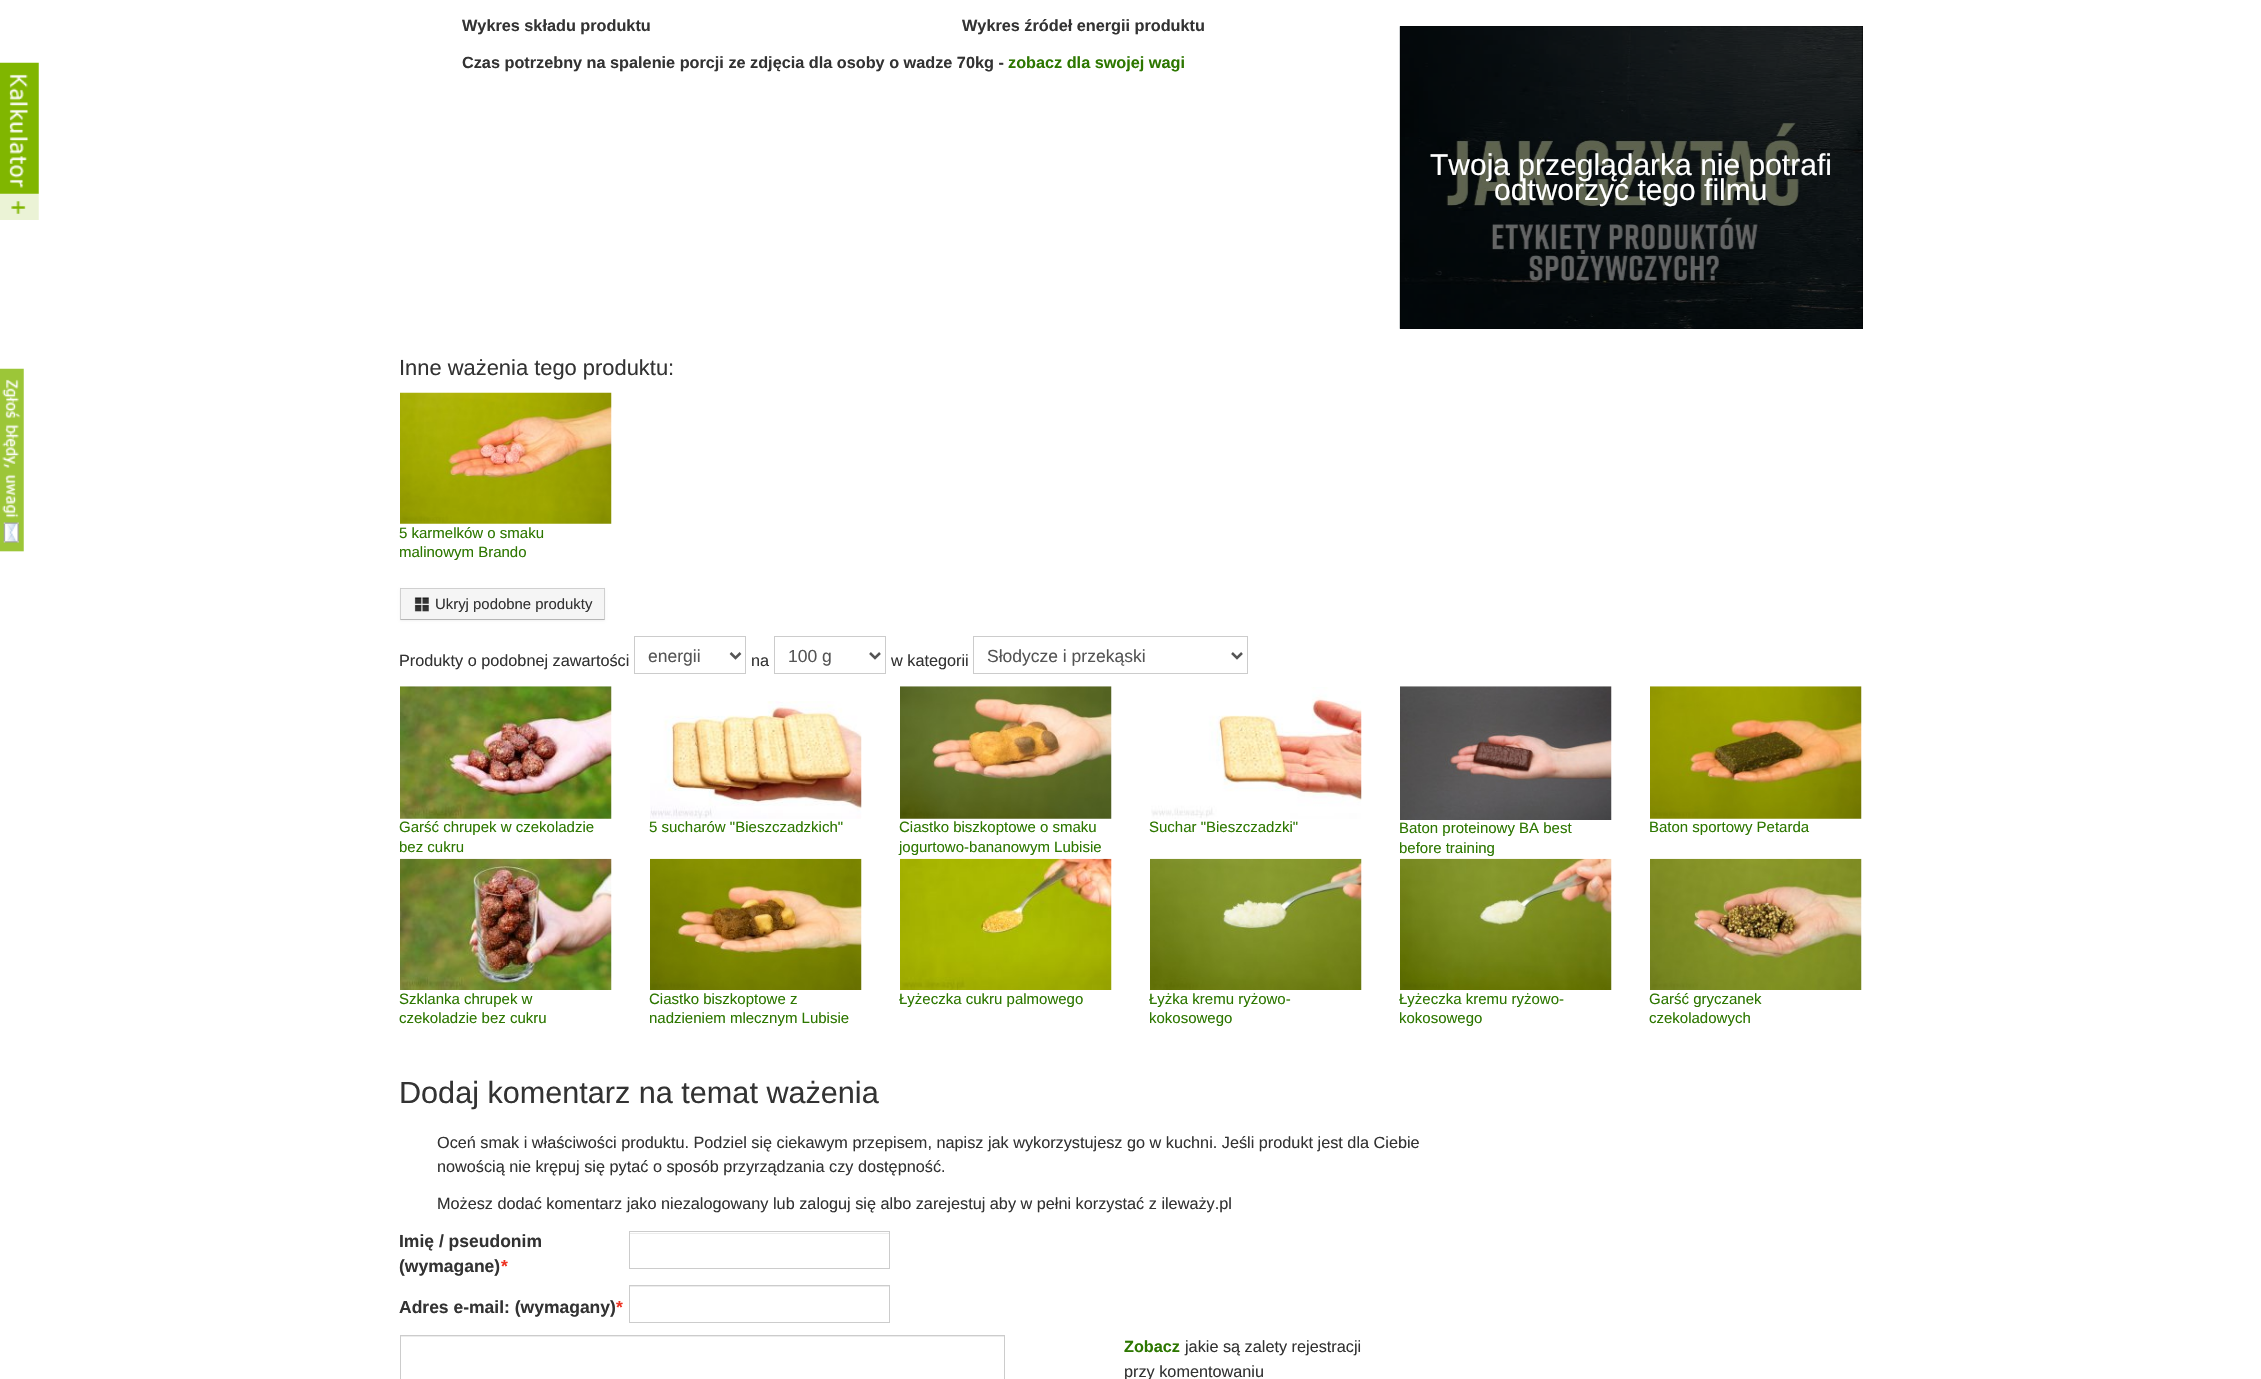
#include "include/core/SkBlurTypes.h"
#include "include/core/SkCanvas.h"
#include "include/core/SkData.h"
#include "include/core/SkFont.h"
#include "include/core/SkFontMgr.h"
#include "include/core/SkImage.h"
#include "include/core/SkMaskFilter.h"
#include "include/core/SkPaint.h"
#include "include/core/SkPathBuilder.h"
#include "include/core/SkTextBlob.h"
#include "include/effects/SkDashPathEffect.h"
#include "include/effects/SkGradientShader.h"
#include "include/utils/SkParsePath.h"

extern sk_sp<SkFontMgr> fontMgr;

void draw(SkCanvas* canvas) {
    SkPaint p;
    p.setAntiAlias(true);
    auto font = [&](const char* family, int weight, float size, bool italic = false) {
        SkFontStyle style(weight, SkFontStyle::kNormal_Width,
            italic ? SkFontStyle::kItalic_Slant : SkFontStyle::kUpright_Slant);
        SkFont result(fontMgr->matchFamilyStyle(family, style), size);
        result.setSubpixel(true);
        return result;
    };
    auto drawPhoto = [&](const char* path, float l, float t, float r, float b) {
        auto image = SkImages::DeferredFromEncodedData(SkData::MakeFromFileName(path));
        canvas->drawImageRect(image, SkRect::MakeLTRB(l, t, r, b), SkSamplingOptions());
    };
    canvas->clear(0xFFFFFFFF);
    drawPhoto("media/1.png", 0, 62, 39, 220);
    auto font1 = font("Liberation Sans", 700, 16.25f);
    p.setColor(0xFF333333);
    {
        const struct { const char* s; float x, y; } items[] = {
            {"Wykres składu produktu", 462, 31},
            {"Wykres źródeł energii produktu", 962, 31},
            {"Czas potrzebny na spalenie porcji ze zdjęcia dla osoby o wadze 70kg -", 462, 68},
        };
        for (auto [s, x, y] : items) {
            canvas->drawString(s, x, y, font1, p);
        }
    }
    p.setColor(0xFF2D7700);
    canvas->drawString("zobacz dla swojej wagi", 1008, 68, font1, p);
    p.setColor(0xFF000000);
    canvas->drawRect(SkRect::MakeLTRB(1400, 26, 1863, 329), p);
    drawPhoto("media/2.png", 1399, 26, 1863, 329);
    auto font2 = font("Liberation Sans", 400, 30);
    p.setColor(0xFFFFFFFF);
    canvas->drawString("Twoja przeglądarka nie potrafi", 1430, 175, font2, p);
    canvas->drawString("odtworzyć tego filmu", 1494, 200, font2, p);
    auto font3 = font("Liberation Sans", 400, 21.9f);
    p.setColor(0xFF333333);
    canvas->drawString("Inne ważenia tego produktu:", 399, 375, font3, p);
    drawPhoto("media/3.png", 400, 392, 612, 524);
    auto font4 = font("Liberation Sans", 400, 15);
    p.setColor(0xFF2D7700);
    canvas->drawString("5 karmelków o smaku", 399, 538, font4, p);
    canvas->drawString("malinowym Brando", 399, 557, font4, p);
    p.setColor(0x0D000000);
    p.setMaskFilter(SkMaskFilter::MakeBlur(kNormal_SkBlurStyle, 1));
    canvas->drawRect(SkRect::MakeLTRB(400, 589, 605, 621), p);
    p.setMaskFilter(nullptr);
    p.setColor(0xFFF5F5F5);
    canvas->drawRect(SkRect::MakeLTRB(400, 588, 605, 619), p);
    p.setColor(0xFFD0D0D0);
    canvas->drawPath(SkPathBuilder().moveTo(400, 588).lineTo(605, 588).lineTo(604, 589).lineTo(401, 589).close().detach(), p);
    p.setColor(0x26000000);
    canvas->drawPath(SkPathBuilder().moveTo(605, 587.5f).lineTo(605, 620).lineTo(604, 619).lineTo(604, 589).close().detach(), p);
    p.setColor(0x40000000);
    canvas->drawPath(SkPathBuilder().moveTo(605, 620).lineTo(400, 620).lineTo(401, 619).lineTo(604, 619).close().detach(), p);
    p.setColor(0x26000000);
    canvas->drawPath(SkPathBuilder().moveTo(400, 620).lineTo(400, 587.5f).lineTo(401, 589).lineTo(401, 619).close().detach(), p);
    drawPhoto("media/4.png", 414, 597, 429, 612);
    auto font5 = font("Liberation Sans", 400, 14.9f);
    p.setColor(0xFF333333);
    canvas->drawString("Ukryj podobne produkty", 435, 609, font5, p);
    auto font6 = font("Liberation Sans", 400, 16.25f);
    canvas->drawString("Produkty o podobnej zawartości", 399, 666, font6, p);
    p.setStyle(SkPaint::kStroke_Style);
    p.setStrokeWidth(1);
    p.setColor(0xFFCCCCCC);
    canvas->drawRect(SkRect::MakeLTRB(634.5f, 636.5f, 745.5f, 673.5f), p);
    p.setStrokeWidth(2.5f);
    p.setColor(0xFF555555);
    canvas->drawPath(SkPathBuilder().moveTo(730.5f, 653).lineTo(735.5f, 658).lineTo(740.5f, 653).detach(), p);
    auto font7 = font("Liberation Sans", 400, 17.5f);
    p.setStyle(SkPaint::kFill_Style);
    canvas->drawString("energii", 648, 662, font7, p);
    p.setColor(0xFF333333);
    canvas->drawString("na", 751, 666, font6, p);
    p.setStyle(SkPaint::kStroke_Style);
    p.setStrokeWidth(1);
    p.setColor(0xFFCCCCCC);
    canvas->drawRect(SkRect::MakeLTRB(774.5f, 636.5f, 885.5f, 673.5f), p);
    p.setStrokeWidth(2.5f);
    p.setColor(0xFF555555);
    canvas->drawPath(SkPathBuilder().moveTo(870, 653).lineTo(875, 658).lineTo(880, 653).detach(), p);
    p.setStyle(SkPaint::kFill_Style);
    canvas->drawString("100 g", 788, 662, font7, p);
    p.setColor(0xFF333333);
    canvas->drawString("w kategorii", 891, 666, font6, p);
    p.setStyle(SkPaint::kStroke_Style);
    p.setStrokeWidth(1);
    p.setColor(0xFFCCCCCC);
    canvas->drawRect(SkRect::MakeLTRB(973.5f, 636.5f, 1247.5f, 673.5f), p);
    p.setStrokeWidth(2.5f);
    p.setColor(0xFF555555);
    canvas->drawPath(SkPathBuilder().moveTo(1232, 653).lineTo(1237, 658).lineTo(1242, 653).detach(), p);
    p.setStyle(SkPaint::kFill_Style);
    canvas->drawString("Słodycze i przekąski", 987, 662, font7, p);
    drawPhoto("media/5.png", 400, 686, 612, 819);
    p.setColor(0xFF2D7700);
    canvas->drawString("Garść chrupek w czekoladzie", 399, 832, font4, p);
    canvas->drawString("bez cukru", 399, 852, font4, p);
    drawPhoto("media/6.png", 650, 701, 862, 819);
    canvas->drawString("5 sucharów \"Bieszczadzkich\"", 649, 832, font4, p);
    drawPhoto("media/7.png", 900, 686, 1112, 819);
    canvas->drawString("Ciastko biszkoptowe o smaku", 899, 832, font4, p);
    canvas->drawString("jogurtowo-bananowym Lubisie", 899, 852, font4, p);
    drawPhoto("media/8.png", 1151, 687, 1362, 819);
    canvas->drawString("Suchar \"Bieszczadzki\"", 1149, 832, font4, p);
    drawPhoto("media/9.png", 1400, 686, 1612, 820);
    canvas->drawString("Baton proteinowy BA best", 1399, 833, font4, p);
    canvas->drawString("before training", 1399, 853, font4, p);
    drawPhoto("media/10.png", 1650, 686, 1862, 819);
    canvas->drawString("Baton sportowy Petarda", 1649, 832, font4, p);
    drawPhoto("media/11.png", 400, 858, 612, 990);
    canvas->drawString("Szklanka chrupek w", 399, 1004, font4, p);
    canvas->drawString("czekoladzie bez cukru", 399, 1023, font4, p);
    drawPhoto("media/12.png", 650, 858, 862, 990);
    canvas->drawString("Ciastko biszkoptowe z", 649, 1004, font4, p);
    canvas->drawString("nadzieniem mlecznym Lubisie", 649, 1023, font4, p);
    drawPhoto("media/13.png", 900, 858, 1112, 990);
    canvas->drawString("Łyżeczka cukru palmowego", 899, 1004, font4, p);
    drawPhoto("media/14.png", 1150, 858, 1362, 990);
    canvas->drawString("Łyżka kremu ryżowo-", 1149, 1004, font4, p);
    canvas->drawString("kokosowego", 1149, 1023, font4, p);
    drawPhoto("media/15.png", 1400, 858, 1612, 990);
    canvas->drawString("Łyżeczka kremu ryżowo-", 1399, 1004, font4, p);
    canvas->drawString("kokosowego", 1399, 1023, font4, p);
    drawPhoto("media/16.png", 1650, 858, 1862, 990);
    canvas->drawString("Garść gryczanek", 1649, 1004, font4, p);
    canvas->drawString("czekoladowych", 1649, 1023, font4, p);
    auto font8 = font("Liberation Sans", 400, 30.6f);
    p.setColor(0xFF333333);
    canvas->drawString("Dodaj komentarz na temat ważenia", 399, 1103, font8, p);
    {
        const struct { const char* s; float x, y; } items[] = {
            {"Oceń smak i właściwości produktu. Podziel się ciekawym przepisem, napisz jak wykorzystujesz go w kuchni. Jeśli produkt jest dla Ciebie", 437, 1148},
            {"nowością nie krępuj się pytać o sposób przyrządzania czy dostępność.", 437, 1172},
            {"Możesz dodać komentarz jako niezalogowany lub zaloguj się albo zarejestuj aby w pełni korzystać z ileważy.pl", 437, 1209},
        };
        for (auto [s, x, y] : items) {
            canvas->drawString(s, x, y, font6, p);
        }
    }
    auto font9 = font("Liberation Sans", 700, 17.5f);
    canvas->drawString("Imię / pseudonim", 399, 1247, font9, p);
    canvas->drawString("(wymagane)", 399, 1272, font9, p);
    p.setColor(0xFFEE3322);
    canvas->drawString("*", 501, 1272, font9, p);
    p.setColor(0xFFECECEC);
    canvas->drawRect(SkRect::MakeLTRB(630, 1233, 889, 1234), p);
    p.setStyle(SkPaint::kStroke_Style);
    p.setStrokeWidth(1);
    p.setColor(0xFFCCCCCC);
    canvas->drawRect(SkRect::MakeLTRB(629.5f, 1231.5f, 889.5f, 1268.5f), p);
    p.setStyle(SkPaint::kFill_Style);
    p.setColor(0xFF333333);
    canvas->drawString("Adres e-mail: (wymagany)", 399, 1313, font9, p);
    p.setColor(0xFFEE3322);
    canvas->drawString("*", 616, 1313, font9, p);
    p.setColor(0xFFECECEC);
    canvas->drawRect(SkRect::MakeLTRB(630, 1286, 889, 1287), p);
    p.setStyle(SkPaint::kStroke_Style);
    p.setColor(0xFFCCCCCC);
    canvas->drawRect(SkRect::MakeLTRB(629.5f, 1285.5f, 889.5f, 1322.5f), p);
    p.setStyle(SkPaint::kFill_Style);
    p.setColor(0xFFECECEC);
    canvas->drawRect(SkRect::MakeLTRB(401, 1336, 1004, 1337), p);
    p.setStyle(SkPaint::kStroke_Style);
    p.setColor(0xFFCCCCCC);
    canvas->drawRect(SkRect::MakeLTRB(400.5f, 1335.5f, 1004.5f, 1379.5f), p);
    p.setStyle(SkPaint::kFill_Style);
    p.setColor(0xFF2D7700);
    canvas->drawString("Zobacz", 1124, 1352, font1, p);
    p.setColor(0xFF333333);
    canvas->drawString("jakie są zalety rejestracji", 1185, 1352, font6, p);
    canvas->drawString("przy komentowaniu", 1124, 1377, font6, p);
    drawPhoto("media/17.png", 0, 368, 24, 552);
}
